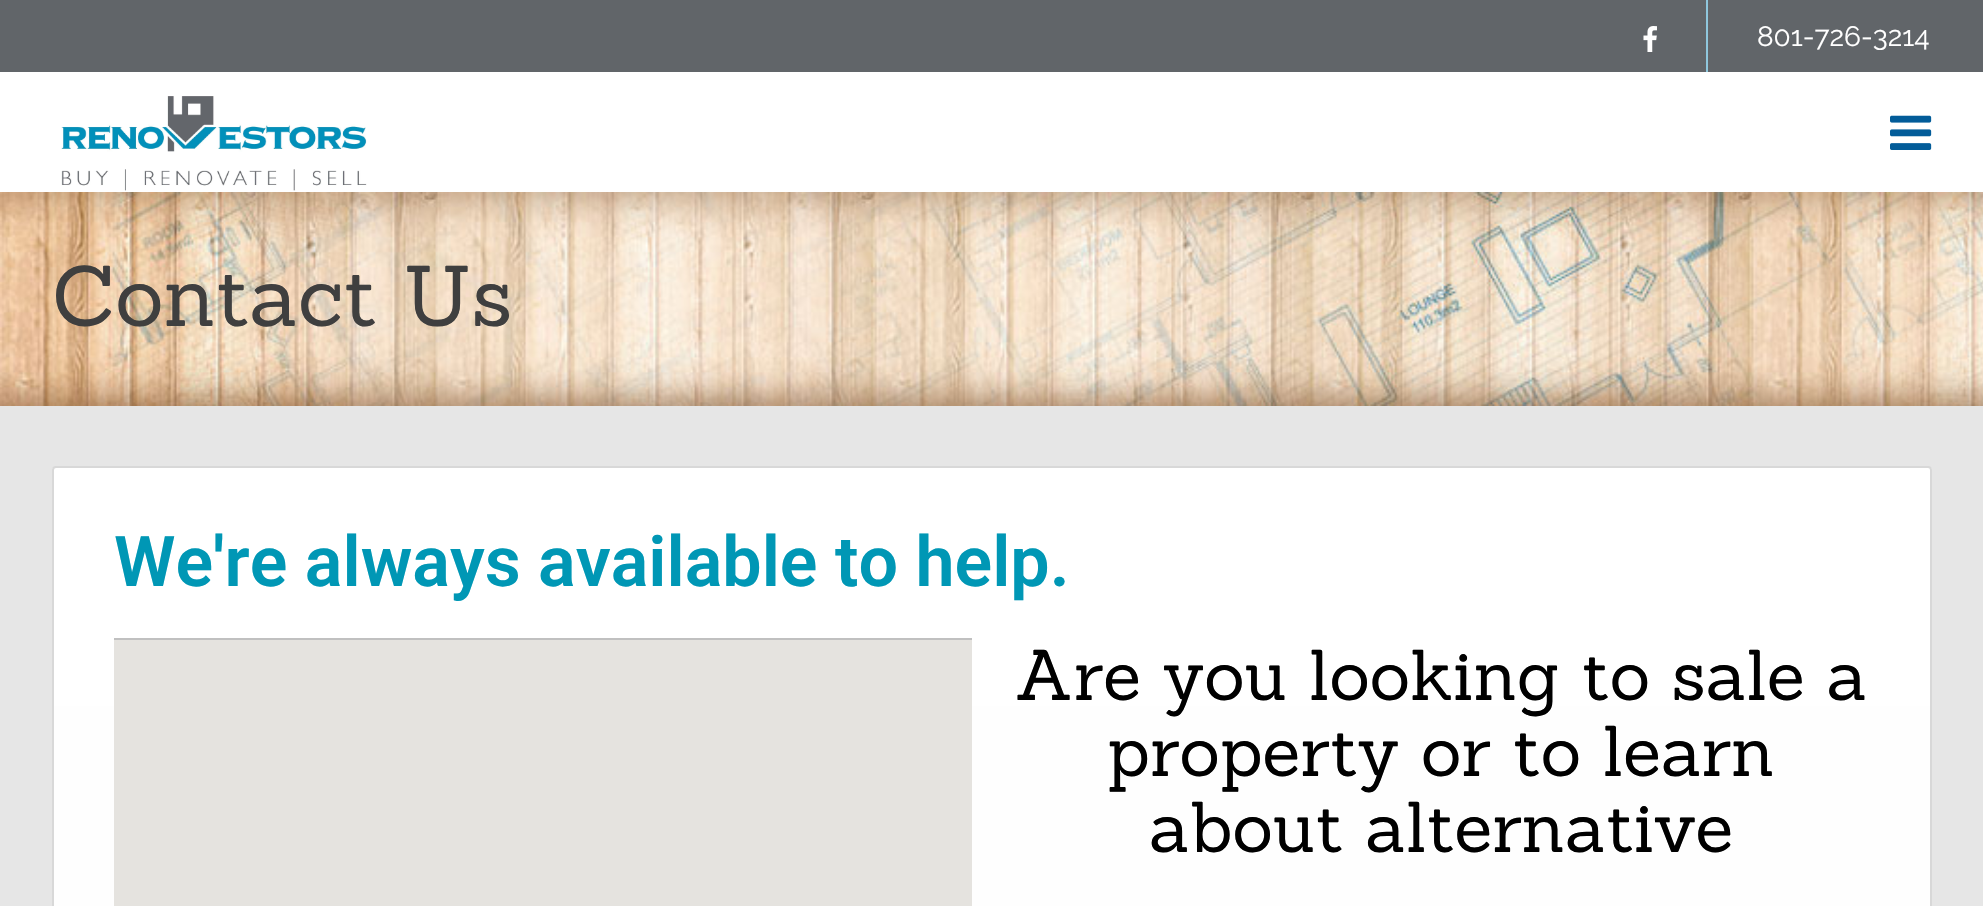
#include "include/core/SkBlurTypes.h"
#include "include/core/SkCanvas.h"
#include "include/core/SkData.h"
#include "include/core/SkFont.h"
#include "include/core/SkFontMgr.h"
#include "include/core/SkImage.h"
#include "include/core/SkMaskFilter.h"
#include "include/core/SkPaint.h"
#include "include/core/SkPathBuilder.h"
#include "include/core/SkTextBlob.h"
#include "include/effects/SkDashPathEffect.h"
#include "include/effects/SkGradientShader.h"
#include "include/utils/SkParsePath.h"

extern sk_sp<SkFontMgr> fontMgr;

void draw(SkCanvas* canvas) {
    SkPaint p;
    p.setAntiAlias(true);
    auto font = [&](const char* family, int weight, float size, bool italic = false) {
        SkFontStyle style(weight, SkFontStyle::kNormal_Width,
            italic ? SkFontStyle::kItalic_Slant : SkFontStyle::kUpright_Slant);
        SkFont result(fontMgr->matchFamilyStyle(family, style), size);
        result.setSubpixel(true);
        return result;
    };
    auto drawPhoto = [&](const char* path, float l, float t, float r, float b) {
        auto image = SkImages::DeferredFromEncodedData(SkData::MakeFromFileName(path));
        canvas->drawImageRect(image, SkRect::MakeLTRB(l, t, r, b), SkSamplingOptions());
    };
    canvas->clear(0xFFE6E6E6);
    p.setColor(0xFF616569);
    canvas->drawRect(SkRect::MakeLTRB(0, 0, 1983, 72), p);
    p.setColor(0xFF8FC7DD);
    canvas->drawRect(SkRect::MakeLTRB(1706, 0, 1708, 72), p);
    drawPhoto("media/1.png", 1643, 26, 1657, 52);
    auto font1 = font("Raleway", 400, 28);
    p.setColor(0xFFFFFFFF);
    canvas->drawString("801-726-3214", 1757, 46, font1, p);
    canvas->drawRect(SkRect::MakeLTRB(0, 72, 1983, 192), p);
    drawPhoto("media/2.png", 61, 96, 367, 191);
    drawPhoto("media/3.png", 1890, 115, 1932, 150);
    drawPhoto("media/4.png", 0, 192, 1983, 406);
    auto font2 = font("Sanchez", 400, 84);
    p.setColor(0xFF3F3F3F);
    canvas->drawString("Contact Us", 52, 326, font2, p);
    {
        const SkColor colors[] = {0xFFFFFFFF, 0xFFFAFAFA, 0xFFFAFAFA, 0xFFFDFDFD};
        const float stops[] = {0, 0.92f, 0.99f, 1};
        const SkPoint ends[] = {{992, 468}, {992, 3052}};
        p.setShader(SkGradientShader::MakeLinear(ends, colors, stops, 4, SkTileMode::kClamp));
        p.setAlpha(255);
    }
    canvas->drawRect(SkRect::MakeLTRB(52, 468, 1932, 906), p);
    p.setStyle(SkPaint::kStroke_Style);
    p.setStrokeWidth(2);
    p.setShader(nullptr);
    p.setColor(0xFFD8D8D8);
    canvas->drawRoundRect(SkRect::MakeLTRB(53, 467, 1931, 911), 3, 3, p);
    auto font3 = font("Roboto", 600, 70);
    p.setStyle(SkPaint::kFill_Style);
    p.setColor(0xFF0097B5);
    canvas->drawString("We're always available to help.", 114, 586, font3, p);
    drawPhoto("media/5.png", 114, 638, 972, 906);
    auto font4 = font("Sanchez", 400, 70);
    p.setColor(0xFF000000);
    {
        const struct { const char* s; float x, y; } items[] = {
            {"Are you looking to sale a", 1015, 700},
            {"property or to learn", 1107, 776},
            {"about alternative", 1149, 852},
        };
        for (auto [s, x, y] : items) {
            canvas->drawString(s, x, y, font4, p);
        }
    }
}
